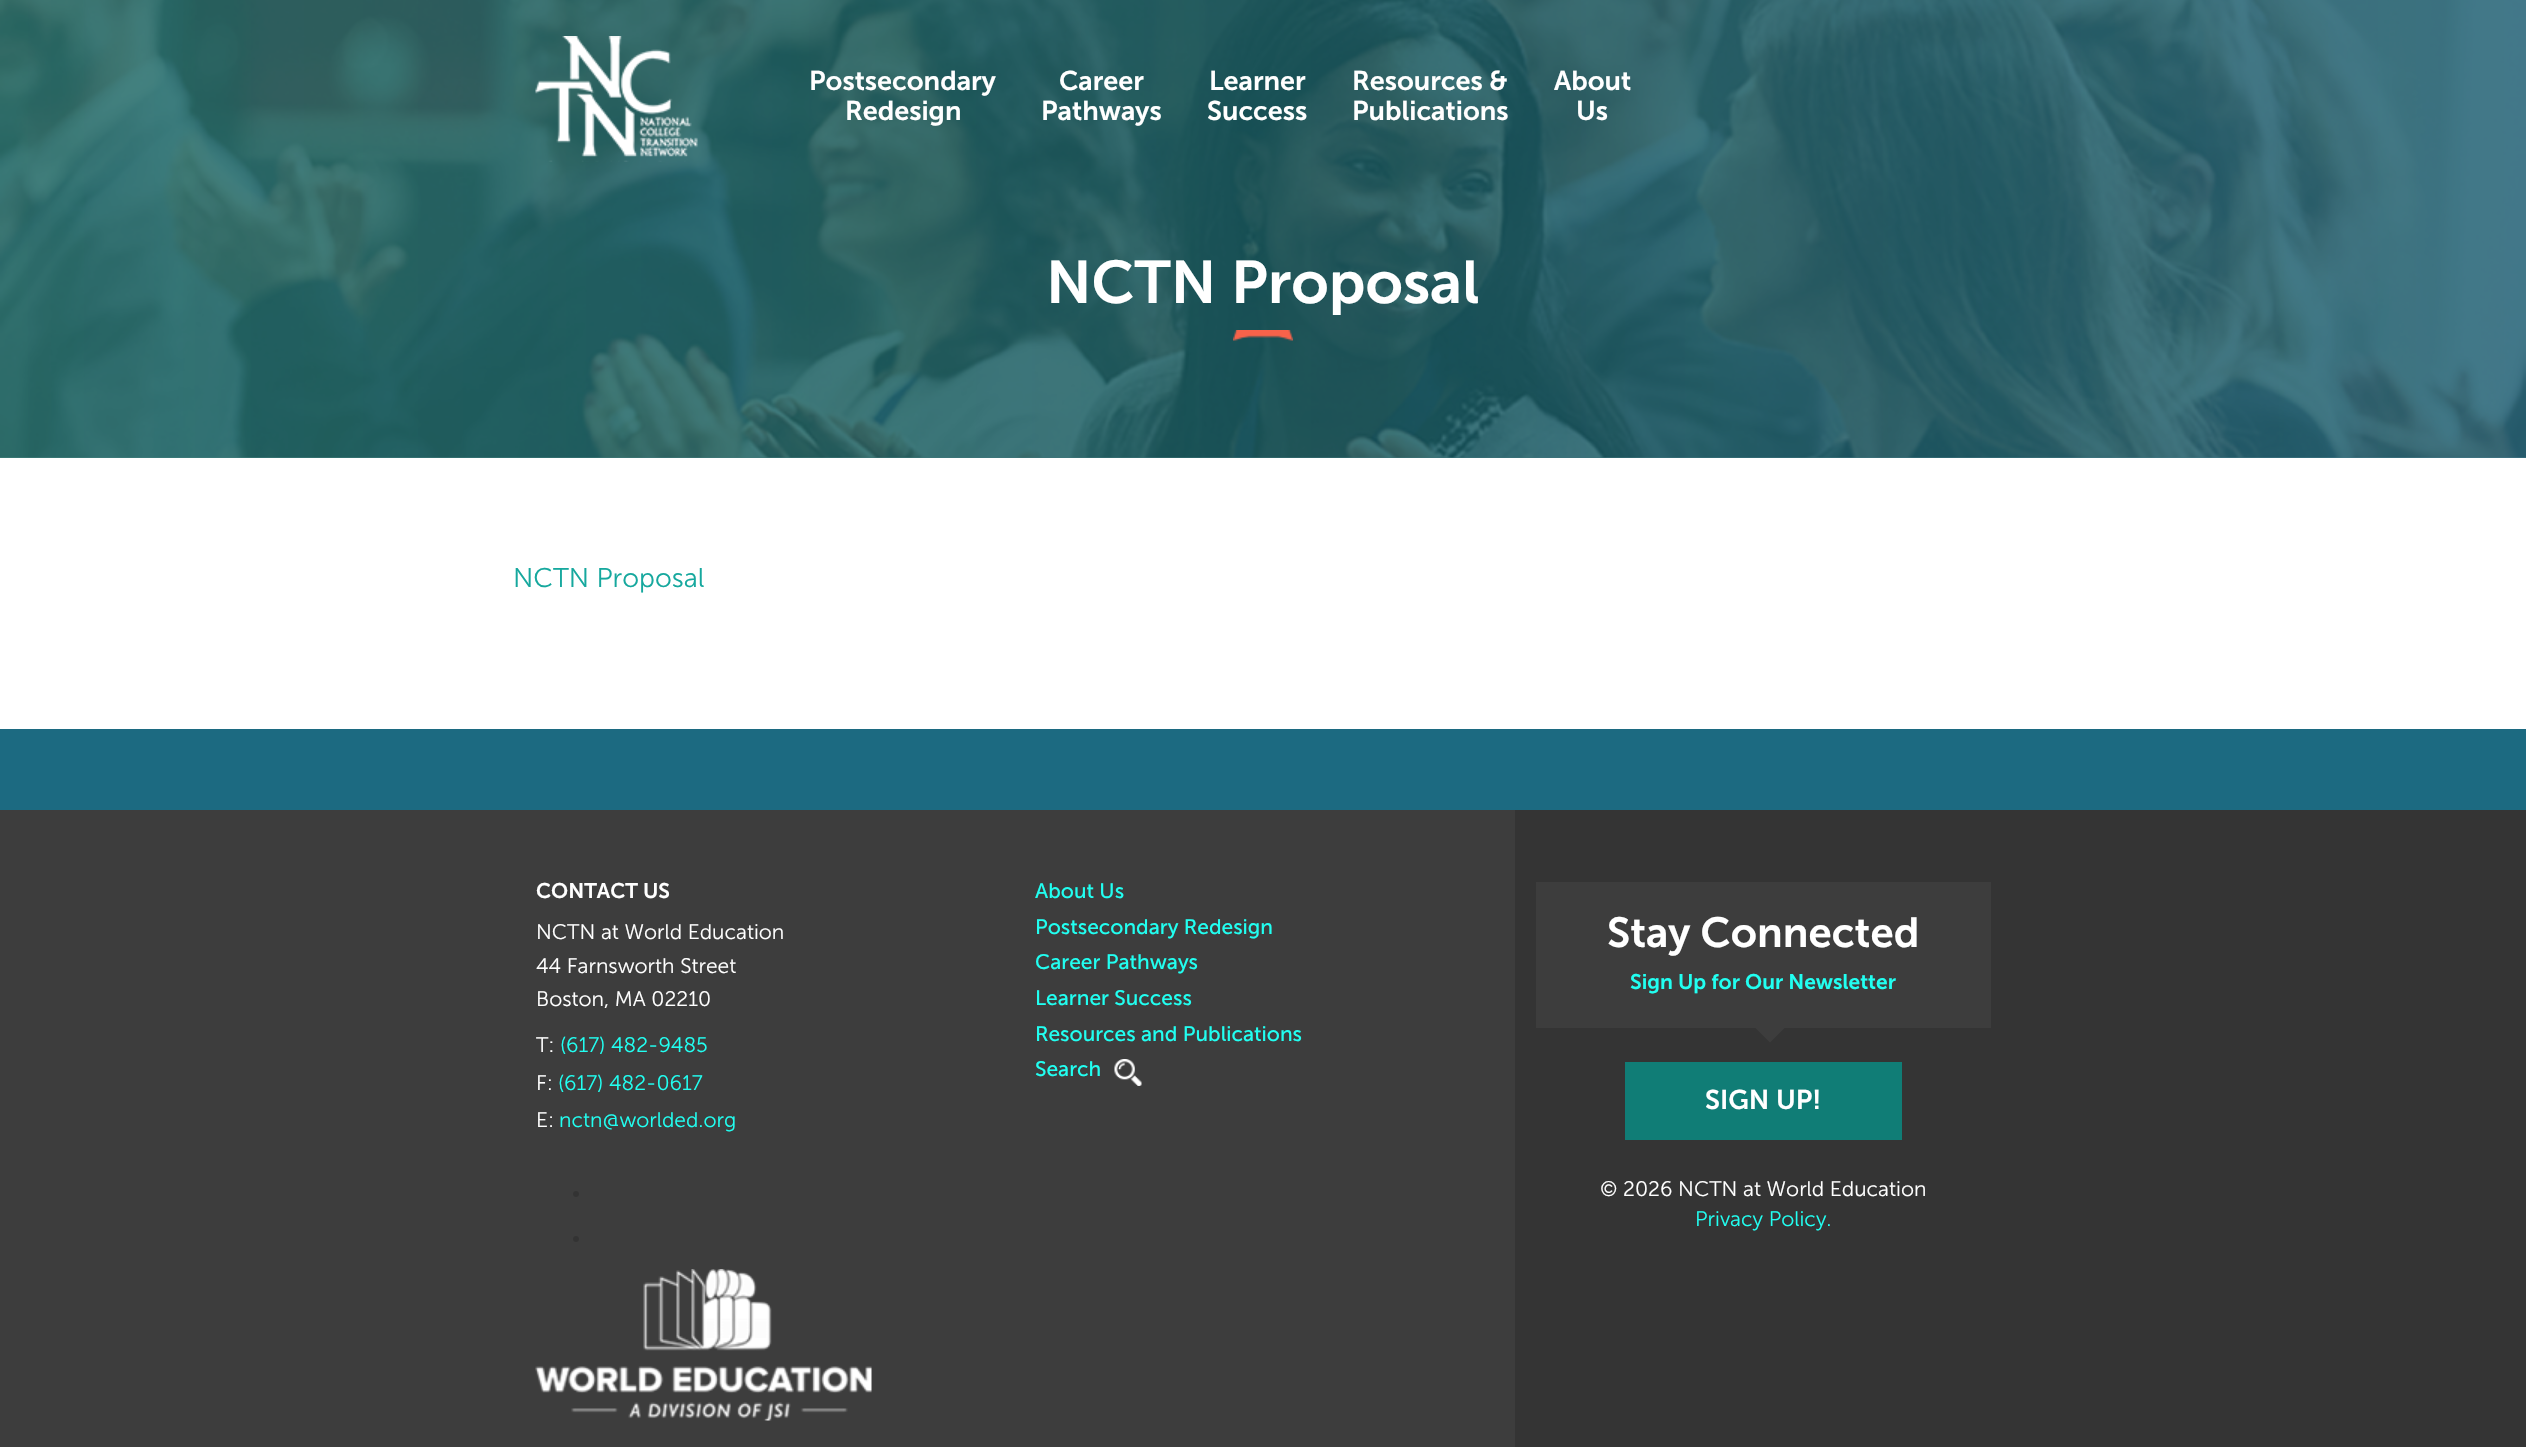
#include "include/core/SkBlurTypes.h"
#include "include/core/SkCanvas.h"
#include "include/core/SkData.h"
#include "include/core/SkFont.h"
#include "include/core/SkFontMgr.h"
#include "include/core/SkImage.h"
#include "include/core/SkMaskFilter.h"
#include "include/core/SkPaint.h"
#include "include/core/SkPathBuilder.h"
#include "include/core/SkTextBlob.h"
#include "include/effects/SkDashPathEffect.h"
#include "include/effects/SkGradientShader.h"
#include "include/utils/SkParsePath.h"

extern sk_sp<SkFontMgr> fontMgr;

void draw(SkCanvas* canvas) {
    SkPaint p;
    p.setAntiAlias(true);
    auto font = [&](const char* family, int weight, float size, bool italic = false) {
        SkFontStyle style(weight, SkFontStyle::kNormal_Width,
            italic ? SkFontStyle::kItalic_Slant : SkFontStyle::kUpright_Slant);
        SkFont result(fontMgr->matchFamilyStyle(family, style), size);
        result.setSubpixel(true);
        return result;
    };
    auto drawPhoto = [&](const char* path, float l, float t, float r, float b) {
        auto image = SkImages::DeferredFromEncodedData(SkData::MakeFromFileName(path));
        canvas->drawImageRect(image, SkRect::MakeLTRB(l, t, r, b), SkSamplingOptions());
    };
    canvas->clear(0xFFFFFFFF);
    p.setColor(0xFFA2A2A2);
    canvas->drawRect(SkRect::MakeLTRB(0, 457, 2526, 458), p);
    drawPhoto("media/2.png", 0, 0, 2526, 458);
    {
        const SkColor colors[] = {0xB31C7671, 0xB30F5E66, 0xB31C6A81};
        const float stops[] = {0, 0.53f, 1};
        const SkPoint ends[] = {{0, 229}, {2526, 229}};
        p.setShader(SkGradientShader::MakeLinear(ends, colors, stops, 3, SkTileMode::kClamp));
        p.setAlpha(255);
    }
    canvas->drawRect(SkRect::MakeLTRB(0, 0, 2526, 458), p);
    drawPhoto("media/1.png", 535, 36, 698, 162);
    auto font1 = font("Museo Sans", 600, 27);
    p.setShader(nullptr);
    p.setColor(0xFFFFFFFF);
    {
        const struct { const char* s; float x, y; } items[] = {
            {"Postsecondary", 809, 90},
            {"Redesign", 845, 120},
            {"Career", 1059, 90},
            {"Pathways", 1041, 120},
            {"Learner", 1209, 90},
            {"Success", 1207, 120},
            {"Resources &", 1352, 90},
            {"Publications", 1352, 120},
            {"About", 1554, 90},
            {"Us", 1576, 120},
        };
        for (auto [s, x, y] : items) {
            canvas->drawString(s, x, y, font1, p);
        }
    }
    auto font2 = font("Museo Sans", 600, 60);
    canvas->drawString("NCTN Proposal", 1046, 303, font2, p);
    drawPhoto("media/3.png", 1233, 330, 1293, 341);
    auto font3 = font("Museo Sans", 300, 27);
    p.setColor(0xFF16A89E);
    canvas->drawString("NCTN Proposal", 513, 587, font3, p);
    p.setColor(0xFF1C6A81);
    canvas->drawRect(SkRect::MakeLTRB(0, 729, 2526, 810), p);
    p.setColor(0xFF3D3D3D);
    canvas->drawRect(SkRect::MakeLTRB(0, 810, 1515, 1447), p);
    auto font4 = font("Museo Sans", 600, 21);
    p.setColor(0xFFFFFFFF);
    canvas->drawString("CONTACT US", 536, 898, font4, p);
    auto font5 = font("Museo Sans", 300, 21);
    {
        const struct { const char* s; float x, y; } items[] = {
            {"NCTN at World Education", 536, 939},
            {"44 Farnsworth Street", 536, 973},
            {"Boston, MA 02210", 536, 1006},
            {"T:", 536, 1052},
        };
        for (auto [s, x, y] : items) {
            canvas->drawString(s, x, y, font5, p);
        }
    }
    p.setColor(0xFF21FFF1);
    canvas->drawString("(617) 482-9485", 560, 1052, font5, p);
    p.setColor(0xFFFFFFFF);
    canvas->drawString("F:", 536, 1090, font5, p);
    p.setColor(0xFF21FFF1);
    canvas->drawString("(617) 482-0617", 558, 1090, font5, p);
    p.setColor(0xFFFFFFFF);
    canvas->drawString("E:", 536, 1127, font5, p);
    p.setColor(0xFF21FFF1);
    canvas->drawString("nctn@worlded.org", 559, 1127, font5, p);
    p.setColor(0xFF333333);
    canvas->drawCircle(576, 1194, 3, p);
    canvas->drawCircle(576, 1239, 3, p);
    drawPhoto("media/4.png", 535, 1269, 872, 1421);
    auto font6 = font("Museo Sans", 400, 21);
    p.setColor(0xFF21FFF1);
    {
        const struct { const char* s; float x, y; } items[] = {
            {"About Us", 1035, 898},
            {"Postsecondary Redesign", 1035, 934},
            {"Career Pathways", 1035, 969},
            {"Learner Success", 1035, 1005},
            {"Resources and Publications", 1035, 1041},
            {"Search", 1035, 1076},
        };
        for (auto [s, x, y] : items) {
            canvas->drawString(s, x, y, font6, p);
        }
    }
    drawPhoto("media/5.png", 1114, 1059, 1142, 1086);
    p.setColor(0xFF343434);
    canvas->drawRect(SkRect::MakeLTRB(1515, 810, 2526, 1447), p);
    p.setColor(0xFF3D3D3D);
    canvas->drawRect(SkRect::MakeLTRB(1536, 882, 1991, 1028), p);
    auto font7 = font("Museo Sans", 600, 42);
    p.setColor(0xFFFFFFFF);
    canvas->drawString("Stay Connected", 1607, 947, font7, p);
    p.setColor(0xFF21FFF1);
    canvas->drawString("Sign Up for Our Newsletter", 1630, 989, font4, p);
    p.setColor(0xFF3D3D3D);
    canvas->drawPath(SkPathBuilder().moveTo(1755, 1027.5f).lineTo(1785, 1027.5f).lineTo(1770, 1042.5f).close().detach(), p);
    p.setColor(0xFF107D76);
    canvas->drawRect(SkRect::MakeLTRB(1625, 1062, 1902, 1140), p);
    p.setColor(0xFFFFFFFF);
    canvas->drawString("SIGN UP!", 1705, 1109, font1, p);
    canvas->drawString("© 2026 NCTN at World Education", 1600, 1196, font5, p);
    p.setColor(0xFF21FFF1);
    canvas->drawString("Privacy Policy.", 1695, 1226, font5, p);
}
